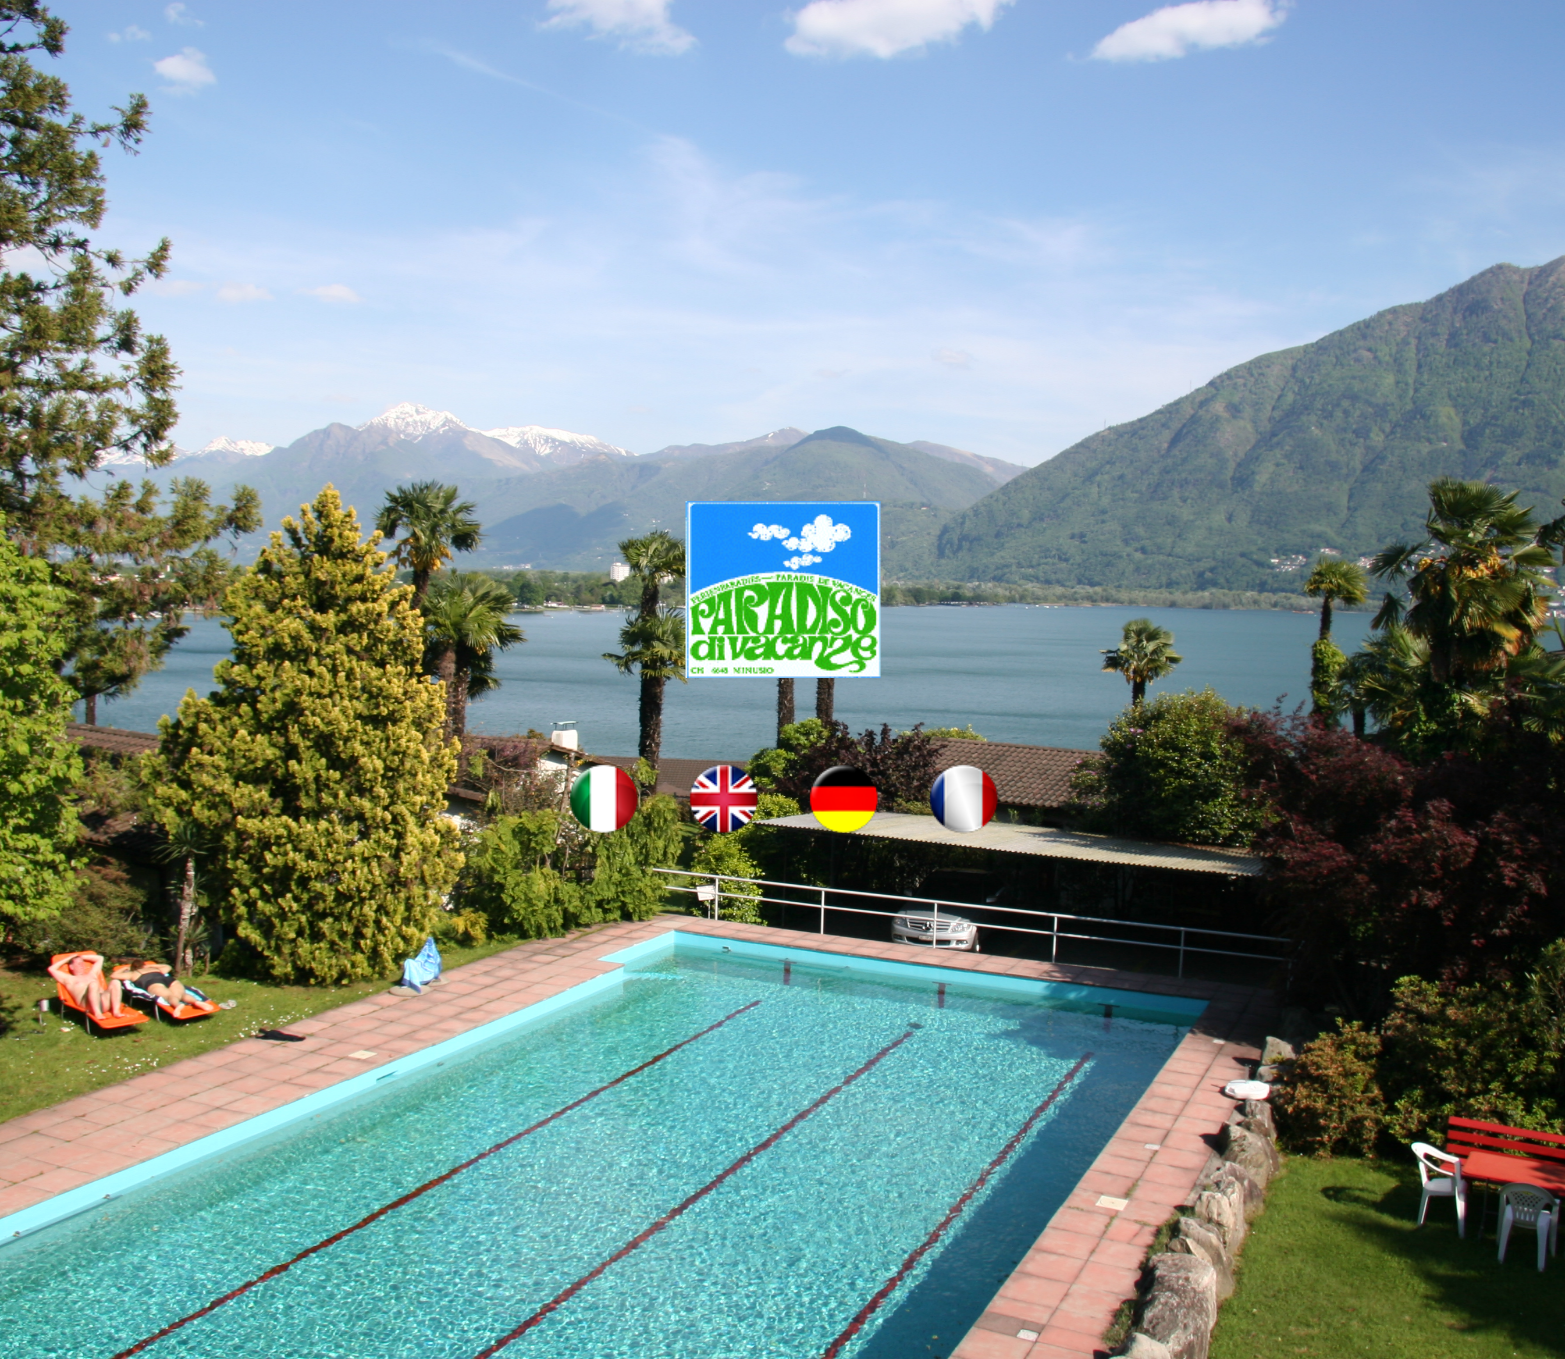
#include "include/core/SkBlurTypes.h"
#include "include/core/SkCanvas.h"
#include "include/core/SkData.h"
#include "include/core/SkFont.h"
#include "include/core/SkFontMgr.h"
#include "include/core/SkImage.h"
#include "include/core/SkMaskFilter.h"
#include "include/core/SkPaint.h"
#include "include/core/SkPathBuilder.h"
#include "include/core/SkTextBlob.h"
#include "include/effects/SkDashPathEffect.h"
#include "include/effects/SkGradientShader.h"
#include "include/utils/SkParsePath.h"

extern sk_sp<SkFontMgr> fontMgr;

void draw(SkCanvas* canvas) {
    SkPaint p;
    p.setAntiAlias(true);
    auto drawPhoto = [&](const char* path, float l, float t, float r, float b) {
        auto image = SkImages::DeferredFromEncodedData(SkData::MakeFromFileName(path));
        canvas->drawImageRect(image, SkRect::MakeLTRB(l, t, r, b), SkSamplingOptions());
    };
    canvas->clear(0xFFFFFFFF);
    drawPhoto("media/1.png", 0, 0, 1565, 1359);
    drawPhoto("media/2.png", 685, 501, 881, 678);
    drawPhoto("media/3.png", 568, 763, 639, 834);
    drawPhoto("media/4.png", 688, 763, 759, 834);
    drawPhoto("media/5.png", 809, 763, 879, 833);
    drawPhoto("media/6.png", 928, 763, 999, 834);
}
